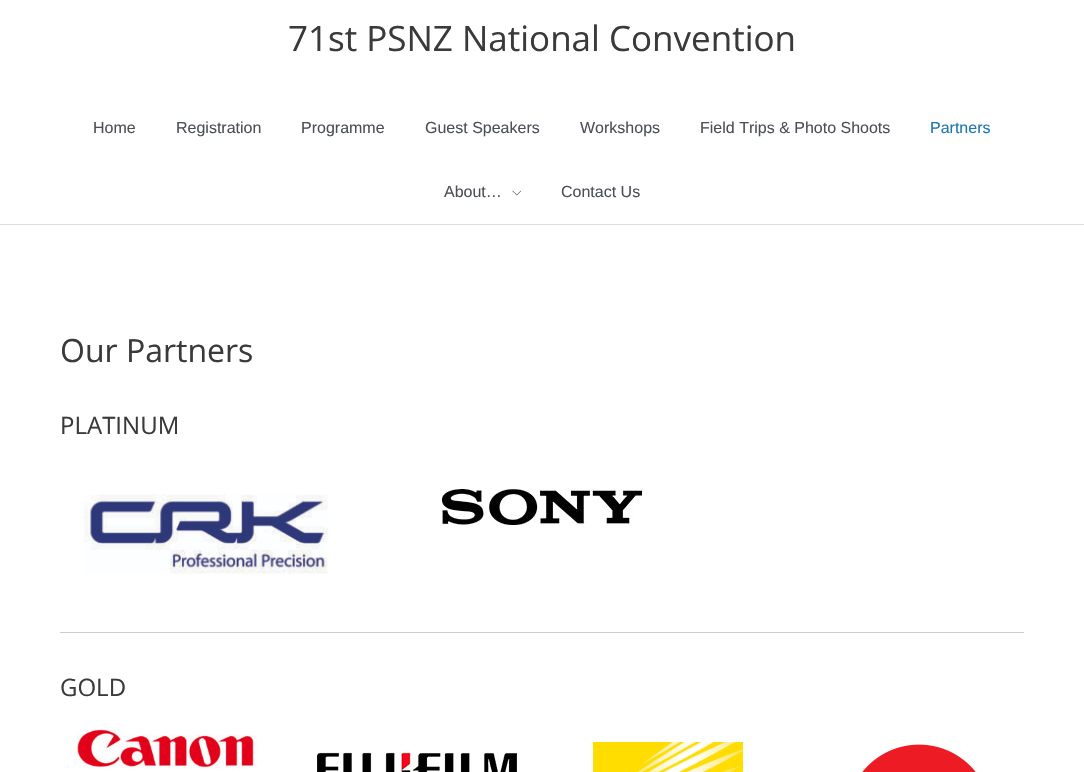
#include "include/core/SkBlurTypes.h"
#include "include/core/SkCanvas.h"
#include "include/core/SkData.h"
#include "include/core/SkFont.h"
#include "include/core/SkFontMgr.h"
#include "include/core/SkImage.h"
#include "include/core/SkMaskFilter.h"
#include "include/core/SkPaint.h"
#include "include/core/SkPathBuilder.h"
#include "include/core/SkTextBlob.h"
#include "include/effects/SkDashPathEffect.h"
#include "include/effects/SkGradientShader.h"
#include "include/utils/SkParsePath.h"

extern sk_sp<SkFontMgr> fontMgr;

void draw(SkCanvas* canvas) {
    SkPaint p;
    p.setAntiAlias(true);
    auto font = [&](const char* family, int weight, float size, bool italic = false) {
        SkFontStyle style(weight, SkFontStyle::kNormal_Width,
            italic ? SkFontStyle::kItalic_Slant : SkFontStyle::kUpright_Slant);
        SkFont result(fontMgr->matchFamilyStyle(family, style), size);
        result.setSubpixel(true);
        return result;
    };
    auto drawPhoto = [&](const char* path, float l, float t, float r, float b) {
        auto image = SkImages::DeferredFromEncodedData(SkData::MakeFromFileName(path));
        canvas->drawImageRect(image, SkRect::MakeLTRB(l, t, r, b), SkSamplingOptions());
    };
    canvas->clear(0xFFFFFFFF);
    p.setColor(0xFFDDDDDD);
    canvas->drawRect(SkRect::MakeLTRB(0, 224, 1084, 225), p);
    auto font1 = font("Open Sans", 400, 35);
    p.setColor(0xFF3A3A3A);
    canvas->drawString("71st PSNZ National Convention", 288, 51, font1, p);
    auto font2 = font("Liberation Sans", 400, 16);
    p.setColor(0xFF4B4F58);
    {
        const struct { const char* s; float x, y; } items[] = {
            {"Home", 93, 133},
            {"Registration", 176, 133},
            {"Programme", 301, 133},
            {"Guest Speakers", 425, 133},
            {"Workshops", 580, 133},
            {"Field Trips & Photo Shoots", 700, 133},
        };
        for (auto [s, x, y] : items) {
            canvas->drawString(s, x, y, font2, p);
        }
    }
    p.setColor(0xFF1E77B3);
    canvas->drawString("Partners", 930, 133, font2, p);
    p.setColor(0xFF4B4F58);
    canvas->drawString("About…", 444, 197, font2, p);
    drawPhoto("media/1.png", 512, 190, 521, 196);
    canvas->drawString("Contact Us", 561, 197, font2, p);
    auto font3 = font("Open Sans", 400, 32);
    p.setColor(0xFF3A3A3A);
    canvas->drawString("Our Partners", 60, 362, font3, p);
    auto font4 = font("Open Sans", 400, 24);
    canvas->drawString("PLATINUM", 60, 434, font4, p);
    drawPhoto("media/2.png", 83, 494, 328, 574);
    drawPhoto("media/3.png", 442, 489, 642, 525);
    p.setColor(0xFFCCCCCC);
    canvas->drawRect(SkRect::MakeLTRB(60, 632, 1024, 633), p);
    p.setColor(0xFF3A3A3A);
    canvas->drawString("GOLD", 60, 696, font4, p);
    drawPhoto("media/4.png", 77, 729, 257, 769);
    drawPhoto("media/5.png", 317, 752, 517, 772);
    drawPhoto("media/6.png", 593, 742, 743, 772);
    drawPhoto("media/7.png", 862, 744, 976, 772);
}
